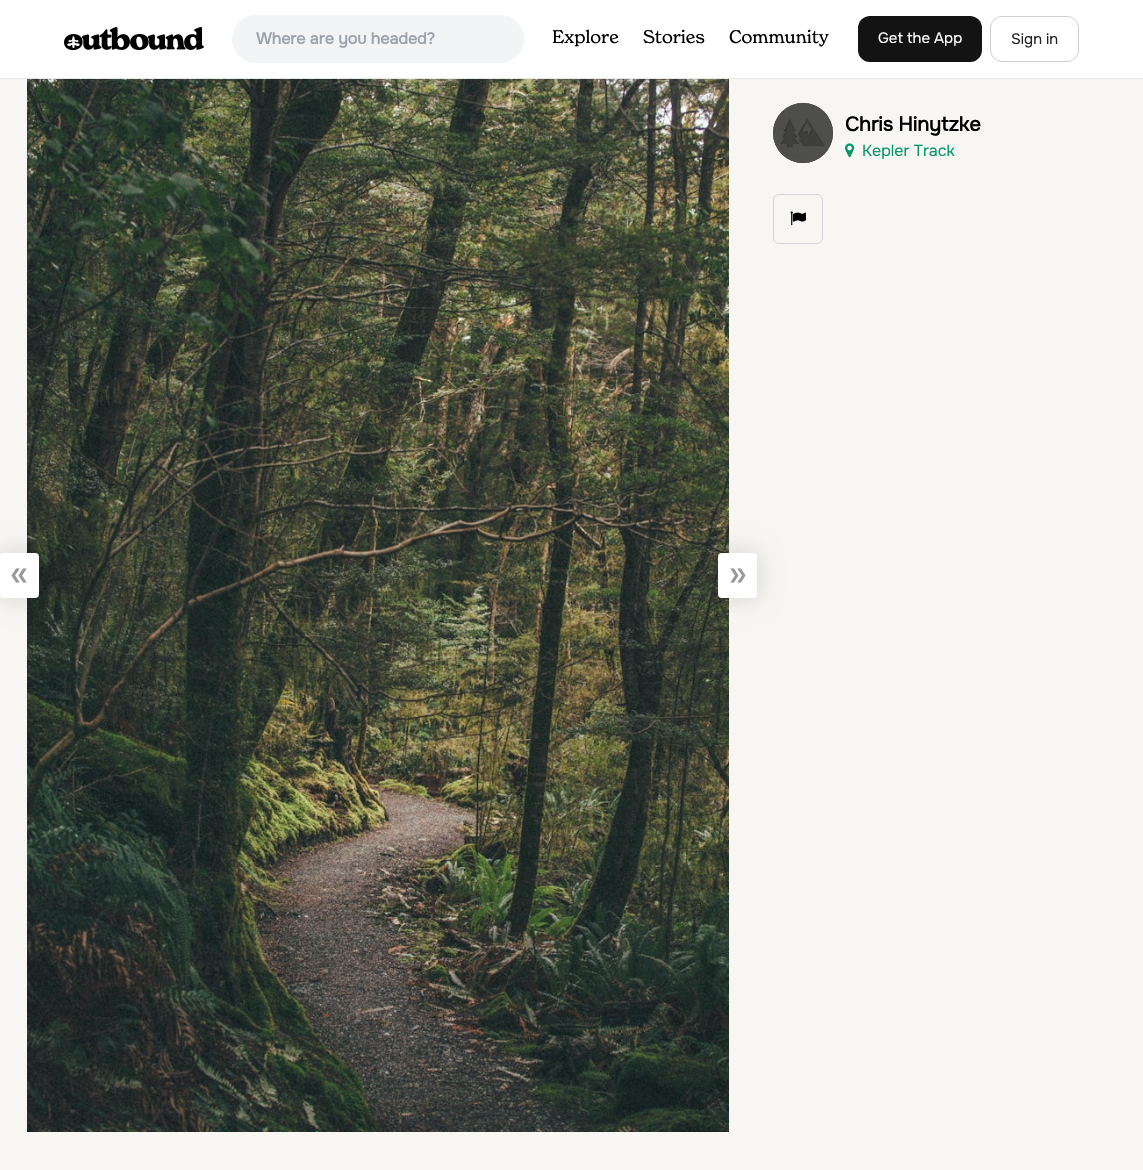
#include "include/core/SkBlurTypes.h"
#include "include/core/SkCanvas.h"
#include "include/core/SkData.h"
#include "include/core/SkFont.h"
#include "include/core/SkFontMgr.h"
#include "include/core/SkImage.h"
#include "include/core/SkMaskFilter.h"
#include "include/core/SkPaint.h"
#include "include/core/SkPathBuilder.h"
#include "include/core/SkTextBlob.h"
#include "include/effects/SkDashPathEffect.h"
#include "include/effects/SkGradientShader.h"
#include "include/utils/SkParsePath.h"

extern sk_sp<SkFontMgr> fontMgr;

void draw(SkCanvas* canvas) {
    SkPaint p;
    p.setAntiAlias(true);
    auto font = [&](const char* family, int weight, float size, bool italic = false) {
        SkFontStyle style(weight, SkFontStyle::kNormal_Width,
            italic ? SkFontStyle::kItalic_Slant : SkFontStyle::kUpright_Slant);
        SkFont result(fontMgr->matchFamilyStyle(family, style), size);
        result.setSubpixel(true);
        return result;
    };
    auto drawPhoto = [&](const char* path, float l, float t, float r, float b) {
        auto image = SkImages::DeferredFromEncodedData(SkData::MakeFromFileName(path));
        canvas->drawImageRect(image, SkRect::MakeLTRB(l, t, r, b), SkSamplingOptions());
    };
    canvas->clear(0xFFF8F6F2);
    p.setColor(0xFFFFFFFF);
    canvas->drawRect(SkRect::MakeLTRB(0, 0, 1143, 78), p);
    p.setColor(0xFFE5E7EB);
    canvas->drawRect(SkRect::MakeLTRB(0, 78, 1143, 79), p);
    drawPhoto("media/1.png", 64, 27, 204, 51);
    p.setColor(0xFFF3F4F6);
    canvas->drawRoundRect(SkRect::MakeLTRB(232, 15, 524, 63), 24, 24, p);
    auto font1 = font("Onest", 700, 16);
    p.setColor(0xFF9CA3AF);
    canvas->drawString("Where are you headed?", 256, 44, font1, p);
    auto font2 = font("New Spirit", 400, 18);
    p.setColor(0xFF000000);
    {
        const struct { const char* s; float x, y; } items[] = {
            {"Explore", 552, 43},
            {"Stories", 643, 43},
            {"Community", 729, 43},
        };
        for (auto [s, x, y] : items) {
            canvas->drawString(s, x, y, font2, p);
        }
    }
    p.setColor(0xFF131313);
    canvas->drawRoundRect(SkRect::MakeLTRB(858, 16, 982, 62), 12, 12, p);
    auto font3 = font("Onest", 400, 15);
    p.setColor(0xFFFFFFFF);
    canvas->drawString("Get the App", 878, 43, font3, p);
    p.setStyle(SkPaint::kStroke_Style);
    p.setStrokeWidth(1);
    p.setColor(0xFFCFCFCF);
    canvas->drawRoundRect(SkRect::MakeLTRB(990.5f, 16.5f, 1078.5f, 61.5f), 11.5f, 11.5f, p);
    p.setStyle(SkPaint::kFill_Style);
    p.setColor(0xFF232323);
    canvas->drawString("Sign in", 1011, 44, font3, p);
    p.setColor(0xFF333333);
    canvas->drawCircle(803, 133, 30, p);
    drawPhoto("media/2.png", 773, 103, 833, 163);
    auto font4 = font("Onest", 700, 20);
    p.setColor(0xFF000000);
    canvas->drawString("Chris Hinytzke", 845, 131, font4, p);
    drawPhoto("media/3.png", 845, 143, 855, 158);
    auto font5 = font("Onest", 400, 16);
    p.setColor(0xFF059669);
    canvas->drawString("Kepler Track", 862, 156, font5, p);
    p.setStyle(SkPaint::kStroke_Style);
    p.setColor(0xFFD1D5DB);
    canvas->drawRoundRect(SkRect::MakeLTRB(773.5f, 194.5f, 822.5f, 243.5f), 5.5f, 5.5f, p);
    drawPhoto("media/4.png", 790, 211, 806, 226);
    drawPhoto("media/5.png", 27, 79, 729, 1132);
    p.setStyle(SkPaint::kFill_Style);
    p.setColor(0x26000000);
    p.setMaskFilter(SkMaskFilter::MakeBlur(kNormal_SkBlurStyle, 12));
    canvas->drawRoundRect(SkRect::MakeLTRB(0, 553, 39, 598), 4, 4, p);
    p.setMaskFilter(nullptr);
    p.setColor(0xFFFFFFFF);
    canvas->drawRoundRect(SkRect::MakeLTRB(0, 553, 39, 598), 4, 4, p);
    auto font6 = font("Onest", 400, 40);
    p.setColor(0xFF999999);
    canvas->drawString("«", 10, 586, font6, p);
    p.setColor(0x26000000);
    p.setMaskFilter(SkMaskFilter::MakeBlur(kNormal_SkBlurStyle, 12));
    canvas->drawRoundRect(SkRect::MakeLTRB(718, 553, 757, 598), 4, 4, p);
    p.setMaskFilter(nullptr);
    p.setColor(0xFFFFFFFF);
    canvas->drawRoundRect(SkRect::MakeLTRB(718, 553, 757, 598), 4, 4, p);
    p.setColor(0xFF999999);
    canvas->drawString("»", 728, 586, font6, p);
}
